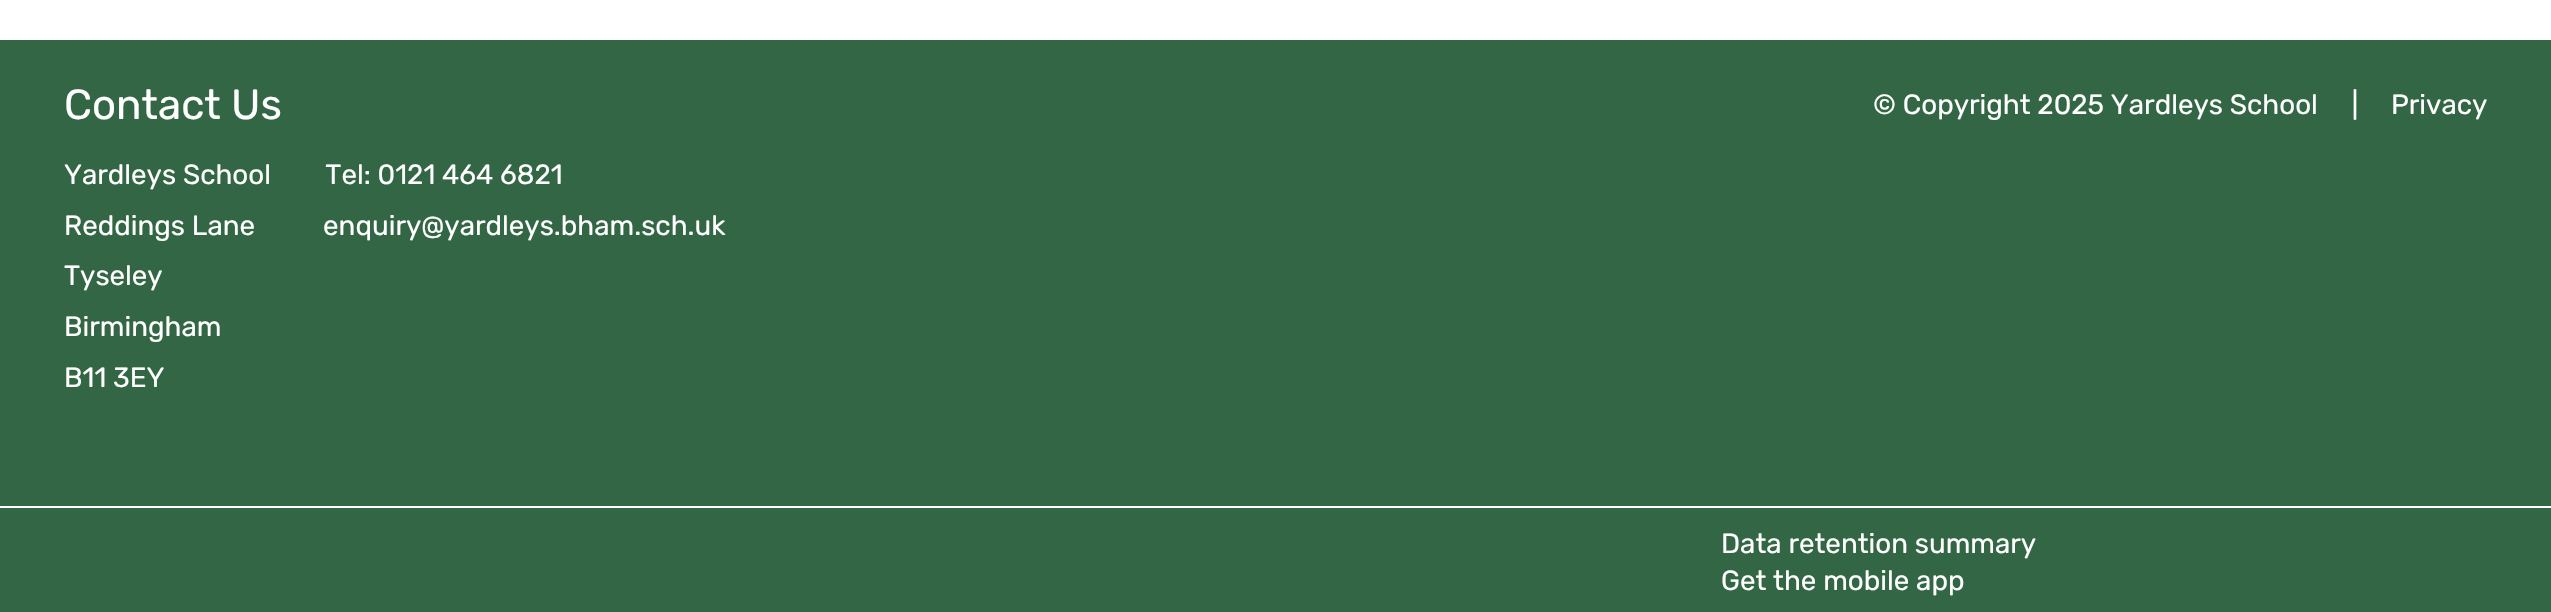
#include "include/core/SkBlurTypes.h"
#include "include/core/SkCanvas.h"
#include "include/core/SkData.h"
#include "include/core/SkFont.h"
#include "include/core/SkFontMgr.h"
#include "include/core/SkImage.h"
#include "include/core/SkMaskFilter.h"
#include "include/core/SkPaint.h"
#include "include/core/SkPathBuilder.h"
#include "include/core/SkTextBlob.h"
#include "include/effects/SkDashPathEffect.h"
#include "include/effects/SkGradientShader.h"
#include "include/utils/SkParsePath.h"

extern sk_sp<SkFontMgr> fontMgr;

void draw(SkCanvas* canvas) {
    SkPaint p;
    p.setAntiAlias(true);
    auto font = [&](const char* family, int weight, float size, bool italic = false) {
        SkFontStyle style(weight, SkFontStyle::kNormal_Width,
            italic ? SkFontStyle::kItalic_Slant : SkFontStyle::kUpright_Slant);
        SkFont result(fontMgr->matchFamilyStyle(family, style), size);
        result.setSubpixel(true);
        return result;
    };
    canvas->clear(0xFFFFFFFF);
    p.setColor(0xFF336644);
    canvas->drawRect(SkRect::MakeLTRB(0, 40, 2551, 612), p);
    auto font1 = font("Rubik", 300, 42);
    p.setColor(0xFFFFFFFF);
    canvas->drawString("Contact Us", 64, 119, font1, p);
    auto font2 = font("Rubik", 300, 27.75f);
    {
        const struct { const char* s; float x, y; } items[] = {
            {"Yardleys School        Tel: 0121 464 6821", 64, 184},
            {"Reddings Lane          enquiry@yardleys.bham.sch.uk", 64, 235},
            {"Tyseley", 64, 285},
            {"Birmingham", 64, 336},
            {"B11 3EY", 64, 387},
            {"© Copyright 2025 Yardleys School     |", 1873, 114},
            {"Privacy", 2391, 114},
        };
        for (auto [s, x, y] : items) {
            canvas->drawString(s, x, y, font2, p);
        }
    }
    canvas->drawRect(SkRect::MakeLTRB(0, 506, 2551, 508), p);
    canvas->drawString("Data retention summary", 1721, 553, font2, p);
    canvas->drawString("Get the mobile app", 1721, 590, font2, p);
}
